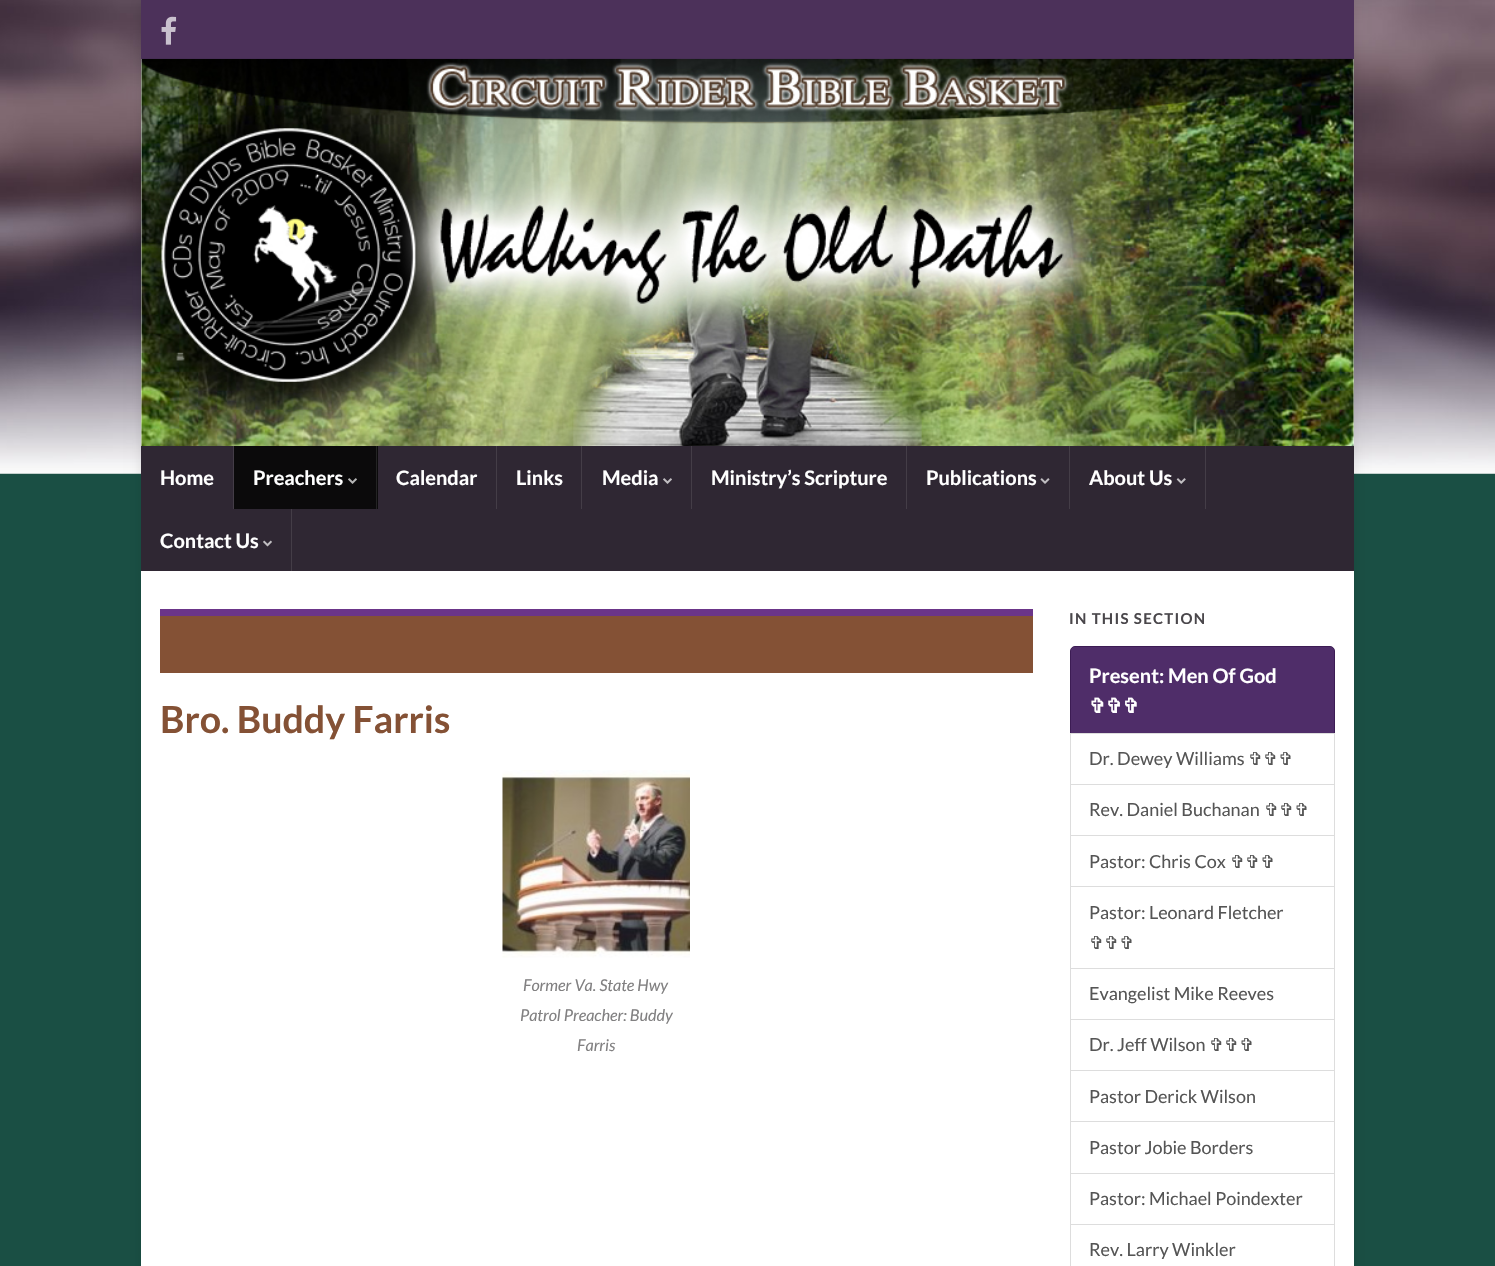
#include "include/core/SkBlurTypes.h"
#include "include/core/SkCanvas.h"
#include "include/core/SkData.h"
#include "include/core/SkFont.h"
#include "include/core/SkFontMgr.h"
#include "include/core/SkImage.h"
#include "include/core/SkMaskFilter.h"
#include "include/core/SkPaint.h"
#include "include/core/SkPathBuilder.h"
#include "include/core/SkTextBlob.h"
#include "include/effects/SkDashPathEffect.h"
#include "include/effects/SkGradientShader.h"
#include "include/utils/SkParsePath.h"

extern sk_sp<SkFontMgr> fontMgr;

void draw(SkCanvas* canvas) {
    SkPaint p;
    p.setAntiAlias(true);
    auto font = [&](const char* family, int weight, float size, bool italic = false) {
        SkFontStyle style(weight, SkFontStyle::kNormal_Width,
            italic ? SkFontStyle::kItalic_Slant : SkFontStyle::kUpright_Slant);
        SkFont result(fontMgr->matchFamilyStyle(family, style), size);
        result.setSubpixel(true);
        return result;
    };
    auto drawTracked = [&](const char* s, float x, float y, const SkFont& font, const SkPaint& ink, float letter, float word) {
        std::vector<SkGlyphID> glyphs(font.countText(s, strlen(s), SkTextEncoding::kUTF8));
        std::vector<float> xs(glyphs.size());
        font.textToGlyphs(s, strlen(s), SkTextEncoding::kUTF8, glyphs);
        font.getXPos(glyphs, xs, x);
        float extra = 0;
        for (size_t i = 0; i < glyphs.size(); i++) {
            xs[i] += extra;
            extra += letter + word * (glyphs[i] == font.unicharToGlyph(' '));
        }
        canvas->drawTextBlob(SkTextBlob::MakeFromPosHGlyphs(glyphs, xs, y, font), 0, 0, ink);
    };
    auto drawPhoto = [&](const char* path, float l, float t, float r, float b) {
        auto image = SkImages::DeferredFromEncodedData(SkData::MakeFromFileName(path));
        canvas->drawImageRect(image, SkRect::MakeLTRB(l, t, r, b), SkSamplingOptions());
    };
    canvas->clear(0xFF1A4F44);
    drawPhoto("media/1.png", 0, 0, 1495, 474);
    p.setColor(0x1A000000);
    p.setMaskFilter(SkMaskFilter::MakeBlur(kNormal_SkBlurStyle, 6));
    canvas->drawRect(SkRect::MakeLTRB(141, 0, 1354, 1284), p);
    p.setMaskFilter(nullptr);
    p.setColor(0xFF4C315A);
    canvas->drawRect(SkRect::MakeLTRB(141, 0, 1354, 59), p);
    drawPhoto("media/2.png", 161, 16, 177, 45);
    p.setColor(0xFFFFFFFF);
    canvas->drawRect(SkRect::MakeLTRB(141, 59, 1354, 446), p);
    drawPhoto("media/3.png", 141, 58, 1354, 446);
    p.setColor(0xFF2F2733);
    canvas->drawRect(SkRect::MakeLTRB(141, 446, 1354, 571), p);
    p.setColor(0xFF443D47);
    canvas->drawRect(SkRect::MakeLTRB(233, 446, 234, 509), p);
    auto font1 = font("Lato", 700, 20);
    p.setColor(0xFFFFFFFF);
    canvas->drawString("Home", 160, 485, font1, p);
    p.setColor(0xFF0B0A0B);
    canvas->drawRect(SkRect::MakeLTRB(234, 446, 378, 509), p);
    p.setColor(0xFF232323);
    canvas->drawRect(SkRect::MakeLTRB(376, 446, 377, 509), p);
    p.setColor(0xFFFFFFFF);
    canvas->drawString("Preachers", 253, 485, font1, p);
    drawPhoto("media/4.png", 348, 478, 357, 484);
    p.setColor(0xFF443D47);
    canvas->drawRect(SkRect::MakeLTRB(496, 446, 497, 509), p);
    p.setColor(0xFFFFFFFF);
    canvas->drawString("Calendar", 396, 485, font1, p);
    p.setColor(0xFF443D47);
    canvas->drawRect(SkRect::MakeLTRB(581, 446, 582, 509), p);
    p.setColor(0xFFFFFFFF);
    canvas->drawString("Links", 516, 485, font1, p);
    p.setColor(0xFF443D47);
    canvas->drawRect(SkRect::MakeLTRB(691, 446, 692, 509), p);
    p.setColor(0xFFFFFFFF);
    canvas->drawString("Media", 602, 485, font1, p);
    drawPhoto("media/5.png", 663, 478, 672, 484);
    p.setColor(0xFF443D47);
    canvas->drawRect(SkRect::MakeLTRB(906, 446, 907, 509), p);
    p.setColor(0xFFFFFFFF);
    canvas->drawString("Ministry’s Scripture", 711, 485, font1, p);
    p.setColor(0xFF443D47);
    canvas->drawRect(SkRect::MakeLTRB(1069, 446, 1070, 509), p);
    p.setColor(0xFFFFFFFF);
    canvas->drawString("Publications", 926, 485, font1, p);
    drawPhoto("media/6.png", 1040, 478, 1050, 484);
    p.setColor(0xFF443D47);
    canvas->drawRect(SkRect::MakeLTRB(1205, 446, 1206, 509), p);
    p.setColor(0xFFFFFFFF);
    canvas->drawString("About Us", 1089, 485, font1, p);
    drawPhoto("media/7.png", 1176, 478, 1186, 484);
    p.setColor(0xFF443D47);
    canvas->drawRect(SkRect::MakeLTRB(291, 509, 292, 571), p);
    p.setColor(0xFFFFFFFF);
    canvas->drawString("Contact Us", 160, 548, font1, p);
    drawPhoto("media/8.png", 263, 540, 272, 547);
    {
        const struct { float l, t, r, b; SkColor color; } items[] = {
            {141, 571, 1354, 1266, 0xFFFFFFFF},
            {160, 616, 1033, 673, 0xFF845135},
            {160, 609, 1033, 616, 0xFF6B3589},
        };
        for (auto [l, t, r, b, color] : items) {
            p.setColor(color);
            canvas->drawRect(SkRect::MakeLTRB(l, t, r, b), p);
        }
    }
    auto font2 = font("Lato", 700, 37.5f);
    p.setColor(0xFF845135);
    canvas->drawString("Bro. Buddy Farris", 160, 733, font2, p);
    drawPhoto("media/9.png", 502, 770, 690, 958);
    auto font3 = font("Lato", 400, 16.25f, true);
    p.setColor(0xFF818081);
    {
        const struct { const char* s; float x, y; } items[] = {
            {"Former Va. State Hwy", 523, 991},
            {"Patrol Preacher: Buddy", 520, 1021},
            {"Farris", 577, 1051},
        };
        for (auto [s, x, y] : items) {
            canvas->drawString(s, x, y, font3, p);
        }
    }
    auto font4 = font("Lato", 700, 15);
    p.setColor(0xFF4A474B);
    drawTracked("IN THIS SECTION", 1069, 624, font4, p, 1.25f, 0);
    p.setColor(0xFF4F2D69);
    canvas->drawPath(SkPathBuilder().moveTo(1075, 646.5f).lineTo(1330, 646.5f).cubicTo(1332.5f, 646.5f, 1334.5f, 648.5f, 1334.5f, 651).lineTo(1334.5f, 733.5f).lineTo(1070.5f, 733.5f).lineTo(1070.5f, 651).cubicTo(1070.5f, 648.5f, 1072.5f, 646.5f, 1075, 646.5f).close().detach(), p);
    p.setStyle(SkPaint::kStroke_Style);
    p.setStrokeWidth(1);
    p.setColor(0xFF3C1C54);
    canvas->drawPath(SkPathBuilder().moveTo(1075, 646.5f).lineTo(1330, 646.5f).cubicTo(1332.5f, 646.5f, 1334.5f, 648.5f, 1334.5f, 651).lineTo(1334.5f, 733.5f).lineTo(1070.5f, 733.5f).lineTo(1070.5f, 651).cubicTo(1070.5f, 648.5f, 1072.5f, 646.5f, 1075, 646.5f).close().detach(), p);
    p.setStyle(SkPaint::kFill_Style);
    p.setColor(0xFFFFFFFF);
    canvas->drawString("Present: Men Of God", 1089, 683, font1, p);
    auto font5 = font("DejaVu Sans", 700, 20);
    canvas->drawString("✞✞✞", 1089, 713, font5, p);
    p.setStyle(SkPaint::kStroke_Style);
    p.setColor(0xFFDDDDDD);
    canvas->drawRect(SkRect::MakeLTRB(1070.5f, 733.5f, 1334.5f, 784.5f), p);
    auto font6 = font("Lato", 400, 18);
    p.setStyle(SkPaint::kFill_Style);
    p.setColor(0xFF555555);
    canvas->drawString("Dr. Dewey Williams", 1089, 765, font6, p);
    auto font7 = font("DejaVu Sans", 400, 18);
    canvas->drawString("✞✞✞", 1248, 765, font7, p);
    p.setStyle(SkPaint::kStroke_Style);
    p.setColor(0xFFDDDDDD);
    canvas->drawRect(SkRect::MakeLTRB(1070.5f, 784.5f, 1334.5f, 835.5f), p);
    p.setStyle(SkPaint::kFill_Style);
    p.setColor(0xFF555555);
    canvas->drawString("Rev. Daniel Buchanan", 1089, 816, font6, p);
    canvas->drawString("✞✞✞", 1264, 816, font7, p);
    p.setStyle(SkPaint::kStroke_Style);
    p.setColor(0xFFDDDDDD);
    canvas->drawRect(SkRect::MakeLTRB(1070.5f, 835.5f, 1334.5f, 887.5f), p);
    p.setStyle(SkPaint::kFill_Style);
    p.setColor(0xFF555555);
    canvas->drawString("Pastor: Chris Cox", 1089, 868, font6, p);
    canvas->drawString("✞✞✞", 1230, 868, font7, p);
    p.setColor(0xFFFFFFFF);
    canvas->drawRect(SkRect::MakeLTRB(1071, 887, 1334, 888), p);
    p.setStyle(SkPaint::kStroke_Style);
    p.setColor(0xFFDDDDDD);
    canvas->drawRect(SkRect::MakeLTRB(1070.5f, 886.5f, 1334.5f, 968.5f), p);
    p.setStyle(SkPaint::kFill_Style);
    p.setColor(0xFF555555);
    canvas->drawString("Pastor: Leonard Fletcher", 1089, 919, font6, p);
    canvas->drawString("✞✞✞", 1089, 949, font7, p);
    p.setStyle(SkPaint::kStroke_Style);
    p.setColor(0xFFDDDDDD);
    canvas->drawRect(SkRect::MakeLTRB(1070.5f, 968.5f, 1334.5f, 1019.5f), p);
    p.setStyle(SkPaint::kFill_Style);
    p.setColor(0xFF555555);
    canvas->drawString("Evangelist Mike Reeves", 1089, 1000, font6, p);
    p.setStyle(SkPaint::kStroke_Style);
    p.setColor(0xFFDDDDDD);
    canvas->drawRect(SkRect::MakeLTRB(1070.5f, 1019.5f, 1334.5f, 1070.5f), p);
    p.setStyle(SkPaint::kFill_Style);
    p.setColor(0xFF555555);
    canvas->drawString("Dr. Jeff Wilson", 1089, 1051, font6, p);
    canvas->drawString("✞✞✞", 1209, 1051, font7, p);
    p.setStyle(SkPaint::kStroke_Style);
    p.setColor(0xFFDDDDDD);
    canvas->drawRect(SkRect::MakeLTRB(1070.5f, 1070.5f, 1334.5f, 1122.5f), p);
    p.setStyle(SkPaint::kFill_Style);
    p.setColor(0xFF555555);
    canvas->drawString("Pastor Derick Wilson", 1089, 1103, font6, p);
    p.setColor(0xFFFFFFFF);
    canvas->drawRect(SkRect::MakeLTRB(1071, 1122, 1334, 1123), p);
    p.setStyle(SkPaint::kStroke_Style);
    p.setColor(0xFFDDDDDD);
    canvas->drawRect(SkRect::MakeLTRB(1070.5f, 1121.5f, 1334.5f, 1173.5f), p);
    p.setStyle(SkPaint::kFill_Style);
    p.setColor(0xFF555555);
    canvas->drawString("Pastor Jobie Borders", 1089, 1154, font6, p);
    p.setStyle(SkPaint::kStroke_Style);
    p.setColor(0xFFDDDDDD);
    canvas->drawRect(SkRect::MakeLTRB(1070.5f, 1173.5f, 1334.5f, 1224.5f), p);
    p.setStyle(SkPaint::kFill_Style);
    p.setColor(0xFF555555);
    canvas->drawString("Pastor: Michael Poindexter", 1089, 1205, font6, p);
    p.setStyle(SkPaint::kStroke_Style);
    p.setColor(0xFFDDDDDD);
    canvas->drawRect(SkRect::MakeLTRB(1070.5f, 1224.5f, 1334.5f, 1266.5f), p);
    p.setStyle(SkPaint::kFill_Style);
    p.setColor(0xFF555555);
    canvas->drawString("Rev. Larry Winkler", 1089, 1256, font6, p);
}
